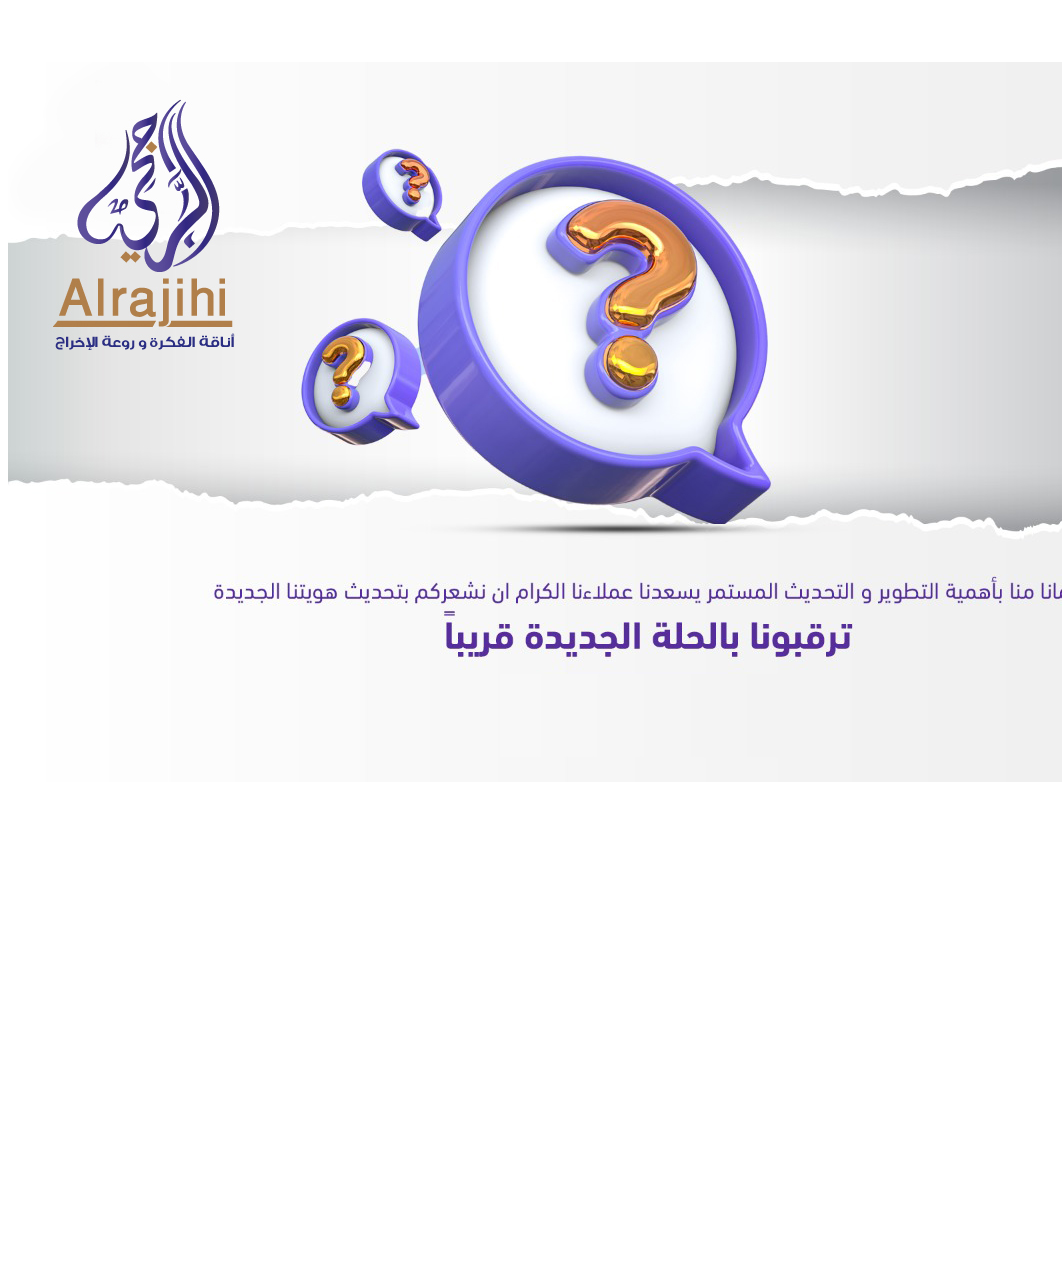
#include "include/core/SkBlurTypes.h"
#include "include/core/SkCanvas.h"
#include "include/core/SkData.h"
#include "include/core/SkFont.h"
#include "include/core/SkFontMgr.h"
#include "include/core/SkImage.h"
#include "include/core/SkMaskFilter.h"
#include "include/core/SkPaint.h"
#include "include/core/SkPathBuilder.h"
#include "include/core/SkTextBlob.h"
#include "include/effects/SkDashPathEffect.h"
#include "include/effects/SkGradientShader.h"
#include "include/utils/SkParsePath.h"

extern sk_sp<SkFontMgr> fontMgr;

void draw(SkCanvas* canvas) {
    SkPaint p;
    p.setAntiAlias(true);
    auto drawPhoto = [&](const char* path, float l, float t, float r, float b) {
        auto image = SkImages::DeferredFromEncodedData(SkData::MakeFromFileName(path));
        canvas->drawImageRect(image, SkRect::MakeLTRB(l, t, r, b), SkSamplingOptions());
    };
    canvas->clear(0xFFFFFFFF);
    drawPhoto("media/1.png", 8, 62, 1062, 782);
}
